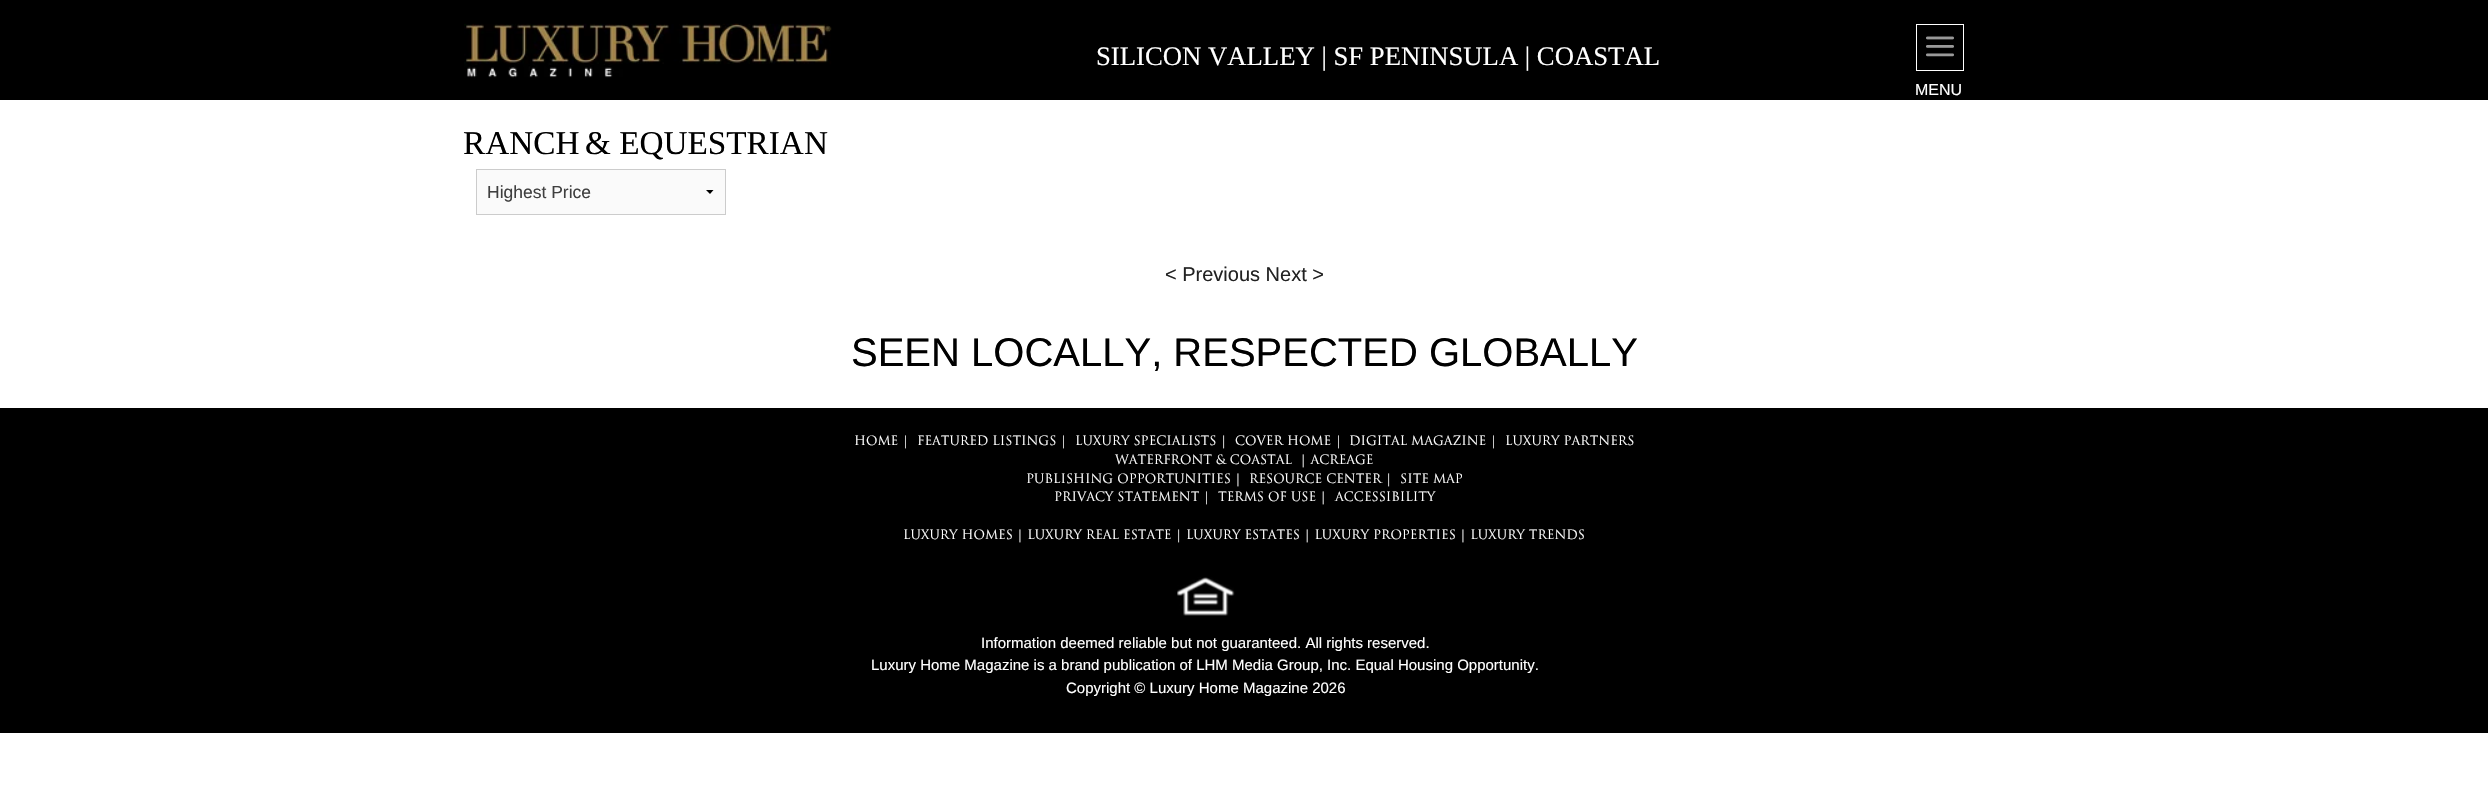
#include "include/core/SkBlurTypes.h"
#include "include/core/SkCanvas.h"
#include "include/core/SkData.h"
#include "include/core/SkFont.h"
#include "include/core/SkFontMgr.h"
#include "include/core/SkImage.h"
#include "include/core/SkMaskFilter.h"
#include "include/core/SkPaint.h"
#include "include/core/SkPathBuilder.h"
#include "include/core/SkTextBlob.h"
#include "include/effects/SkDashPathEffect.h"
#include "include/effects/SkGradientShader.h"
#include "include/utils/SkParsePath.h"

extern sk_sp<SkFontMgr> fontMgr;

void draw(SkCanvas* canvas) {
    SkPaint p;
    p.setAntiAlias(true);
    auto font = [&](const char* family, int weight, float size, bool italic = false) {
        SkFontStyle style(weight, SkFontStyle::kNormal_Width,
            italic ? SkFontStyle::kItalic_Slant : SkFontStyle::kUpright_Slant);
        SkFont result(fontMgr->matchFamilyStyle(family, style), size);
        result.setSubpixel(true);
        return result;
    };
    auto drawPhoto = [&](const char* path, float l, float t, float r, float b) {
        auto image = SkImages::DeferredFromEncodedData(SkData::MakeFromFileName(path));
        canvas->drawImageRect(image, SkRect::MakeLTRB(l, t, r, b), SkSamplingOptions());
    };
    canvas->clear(0xFFFFFFFF);
    p.setColor(0xFF000000);
    canvas->drawRect(SkRect::MakeLTRB(0, 0, 2488, 100), p);
    drawPhoto("media/1.png", 464, 23, 832, 78);
    auto font1 = font("Liberation Serif", 400, 26.7f);
    p.setColor(0xFFFFFFFF);
    canvas->drawString("SILICON VALLEY | SF PENINSULA | COASTAL", 1096, 65, font1, p);
    p.setStyle(SkPaint::kStroke_Style);
    p.setStrokeWidth(1);
    canvas->drawRect(SkRect::MakeLTRB(1916.5f, 24.5f, 1963.5f, 70.5f), p);
    drawPhoto("media/2.png", 1926, 36, 1954, 57);
    auto font2 = font("Liberation Sans", 400, 16);
    p.setStyle(SkPaint::kFill_Style);
    canvas->drawString("MENU", 1915, 95, font2, p);
    auto font3 = font("Liberation Serif", 400, 33.25f);
    p.setColor(0xFF000000);
    canvas->drawString("RANCH", 463, 154, font3, p);
    canvas->drawString("& EQUESTRIAN", 585, 154, font3, p);
    p.setColor(0xFFFAFAFA);
    canvas->drawRect(SkRect::MakeLTRB(477, 170, 725, 214), p);
    p.setColor(0xFF000000);
    canvas->drawPath(SkPathBuilder().moveTo(713.5f, 190).lineTo(710, 194).lineTo(706, 190).close().detach(), p);
    p.setStyle(SkPaint::kStroke_Style);
    p.setColor(0xFFCCCCCC);
    canvas->drawRect(SkRect::MakeLTRB(476.5f, 169.5f, 725.5f, 214.5f), p);
    auto font4 = font("Liberation Sans", 400, 17.5f);
    p.setStyle(SkPaint::kFill_Style);
    p.setColor(0xFF3F3F3F);
    canvas->drawString("Highest Price", 487, 198, font4, p);
    auto font5 = font("Liberation Sans", 400, 20);
    p.setColor(0xFF222222);
    canvas->drawString("< Previous Next >", 1165, 281, font5, p);
    auto font6 = font("Liberation Sans", 400, 40);
    p.setColor(0xFF000000);
    canvas->drawString("SEEN LOCALLY, RESPECTED GLOBALLY", 851, 366, font6, p);
    canvas->drawRect(SkRect::MakeLTRB(0, 408, 2488, 733), p);
    auto font7 = font("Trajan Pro", 400, 12.5f);
    p.setColor(0xFFFFFFFF);
    {
        const struct { const char* s; float x, y; } items[] = {
            {"HOME |", 854, 445},
            {"FEATURED LISTINGS |", 917, 445},
            {"LUXURY SPECIALISTS |", 1075, 445},
            {"COVER HOME |", 1235, 445},
            {"DIGITAL MAGAZINE |", 1349, 445},
            {"LUXURY PARTNERS", 1505, 445},
            {"WATERFRONT & COASTAL", 1115, 464},
            {"| ACREAGE", 1300, 464},
            {"PUBLISHING OPPORTUNITIES |", 1026, 483},
            {"RESOURCE CENTER |", 1249, 483},
            {"SITE MAP", 1400, 483},
            {"PRIVACY STATEMENT |", 1054, 501},
            {"TERMS OF USE |", 1218, 501},
            {"ACCESSIBILITY", 1335, 501},
            {"LUXURY HOMES | LUXURY REAL ESTATE | LUXURY ESTATES | LUXURY PROPERTIES | LUXURY TRENDS", 903, 539},
        };
        for (auto [s, x, y] : items) {
            canvas->drawString(s, x, y, font7, p);
        }
    }
    drawPhoto("media/3.png", 1177, 577, 1235, 616);
    auto font8 = font("Liberation Sans", 400, 15);
    {
        const struct { const char* s; float x, y; } items[] = {
            {"Information deemed reliable but not guaranteed. All rights reserved.", 981, 648},
            {"Luxury Home Magazine is a brand publication of LHM Media Group, Inc. Equal Housing Opportunity.", 871, 670},
            {"Copyright © Luxury Home Magazine 2026", 1066, 693},
        };
        for (auto [s, x, y] : items) {
            canvas->drawString(s, x, y, font8, p);
        }
    }
}
